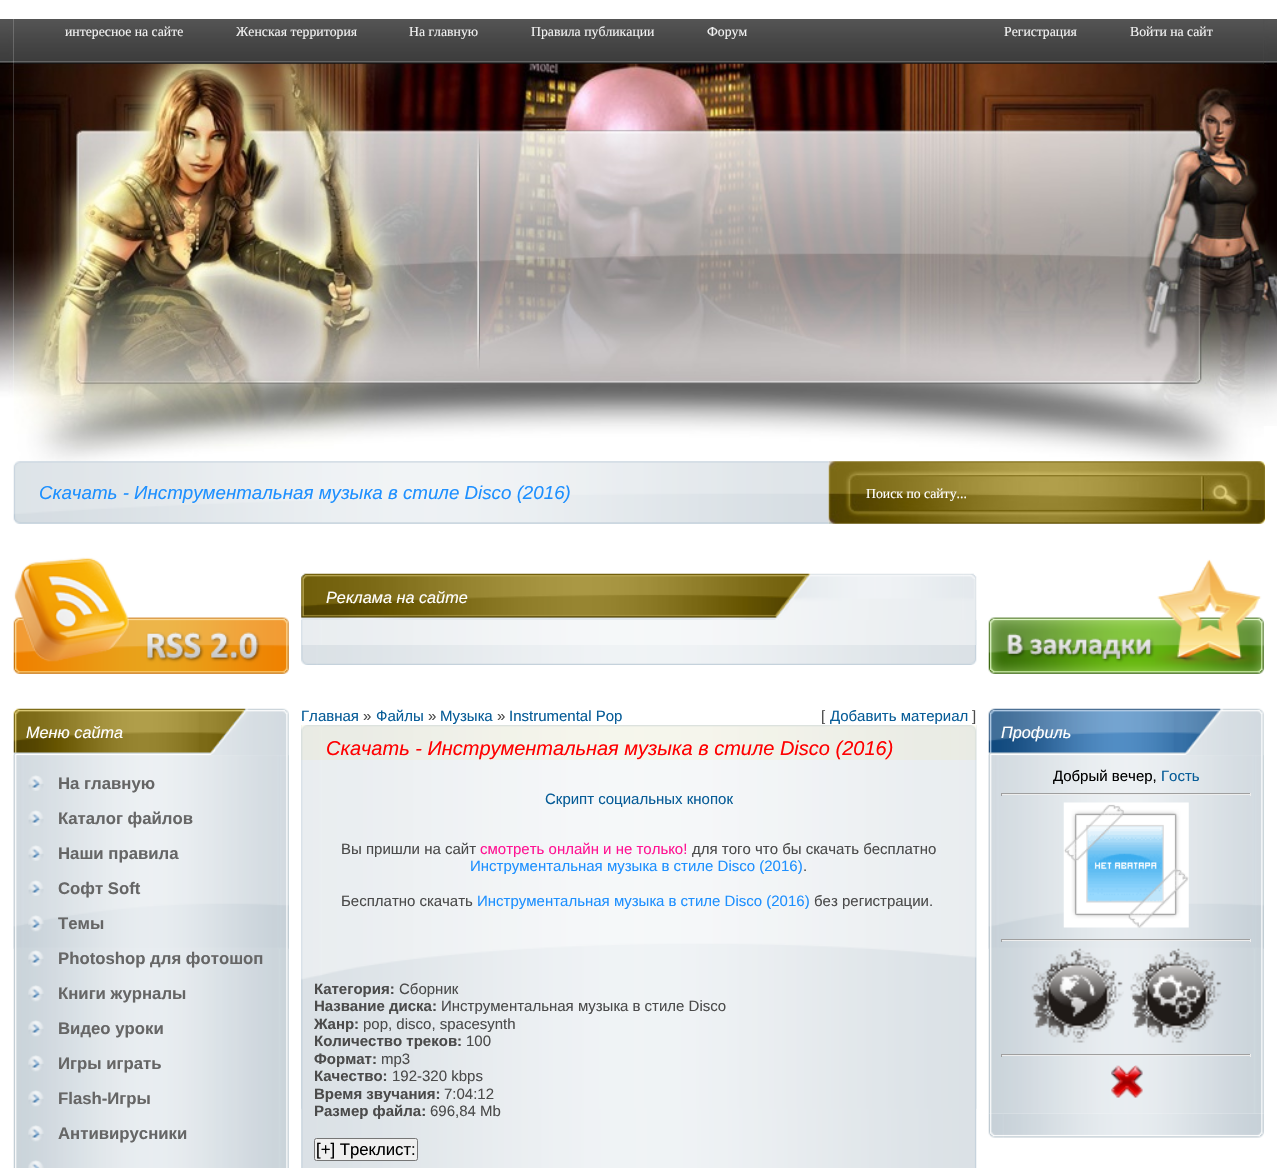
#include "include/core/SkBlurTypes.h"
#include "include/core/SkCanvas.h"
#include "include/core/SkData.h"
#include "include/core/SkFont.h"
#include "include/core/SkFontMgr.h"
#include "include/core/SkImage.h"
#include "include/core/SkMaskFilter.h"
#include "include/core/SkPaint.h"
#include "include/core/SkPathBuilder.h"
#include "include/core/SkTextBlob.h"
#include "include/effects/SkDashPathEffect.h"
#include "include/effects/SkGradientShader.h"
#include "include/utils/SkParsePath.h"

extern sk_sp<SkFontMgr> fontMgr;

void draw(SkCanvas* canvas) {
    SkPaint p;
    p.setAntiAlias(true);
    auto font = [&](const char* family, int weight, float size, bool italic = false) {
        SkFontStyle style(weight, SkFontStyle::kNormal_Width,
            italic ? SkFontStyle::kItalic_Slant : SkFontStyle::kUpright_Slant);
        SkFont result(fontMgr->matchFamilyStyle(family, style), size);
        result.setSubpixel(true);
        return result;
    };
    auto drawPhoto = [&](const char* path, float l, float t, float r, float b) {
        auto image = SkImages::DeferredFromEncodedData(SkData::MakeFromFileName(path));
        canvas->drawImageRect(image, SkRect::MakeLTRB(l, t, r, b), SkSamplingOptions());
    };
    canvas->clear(0xFFFFFFFF);
    drawPhoto("media/1.png", 0, 19, 1277, 426);
    p.setColor(0xFF4B4B4B);
    canvas->drawRect(SkRect::MakeLTRB(14, 19, 1264, 64), p);
    drawPhoto("media/2.png", 13, 19, 1264, 64);
    auto font1 = font("Liberation Serif", 400, 13.75f);
    p.setColor(0xFFF1F1F1);
    {
        const struct { const char* s; float x, y; } items[] = {
            {"интересное на сайте", 65, 36},
            {"Женская территория", 236, 36},
            {"На главную", 409, 36},
            {"Правила публикации", 531, 36},
            {"Форум", 707, 36},
            {"Регистрация", 1004, 36},
            {"Войти на сайт", 1130, 36},
        };
        for (auto [s, x, y] : items) {
            canvas->drawString(s, x, y, font1, p);
        }
    }
    drawPhoto("media/3.png", 13, 63, 480, 464);
    drawPhoto("media/4.png", 480, 63, 1264, 469);
    drawPhoto("media/5.png", 13, 461, 829, 524);
    auto font2 = font("Liberation Sans", 400, 18.75f, true);
    p.setColor(0xFF1E90FF);
    canvas->drawString("Скачать - Инструментальная музыка в стиле Disco (2016)", 39, 499, font2, p);
    drawPhoto("media/6.png", 828, 461, 1200, 524);
    p.setColor(0xFFFFFFFF);
    canvas->drawString("Поиск по сайту...", 866, 498, font1, p);
    drawPhoto("media/7.png", 1200, 461, 1265, 524);
    drawPhoto("media/8.png", 13, 557, 289, 674);
    drawPhoto("media/9.png", 13, 708, 289, 755);
    auto font3 = font("Liberation Sans", 400, 16.25f, true);
    canvas->drawString("Меню сайта", 26, 738, font3, p);
    drawPhoto("media/10.png", 13, 755, 289, 1168);
    drawPhoto("media/11.png", 13, 755, 289, 949);
    drawPhoto("media/12.png", 28, 775, 44, 791);
    auto font4 = font("Liberation Sans", 700, 16.75f);
    p.setColor(0xFF666666);
    canvas->drawString("На главную", 58, 789, font4, p);
    drawPhoto("media/12.png", 28, 810, 44, 826);
    canvas->drawString("Каталог файлов", 58, 824, font4, p);
    drawPhoto("media/12.png", 28, 845, 44, 861);
    canvas->drawString("Наши правила", 58, 859, font4, p);
    drawPhoto("media/12.png", 28, 880, 44, 896);
    canvas->drawString("Софт Soft", 58, 894, font4, p);
    drawPhoto("media/13.png", 28, 915, 44, 932);
    canvas->drawString("Темы", 58, 929, font4, p);
    drawPhoto("media/14.png", 28, 950, 44, 967);
    canvas->drawString("Photoshop для фотошоп", 58, 964, font4, p);
    drawPhoto("media/14.png", 28, 985, 44, 1002);
    canvas->drawString("Книги журналы", 58, 999, font4, p);
    drawPhoto("media/14.png", 28, 1020, 44, 1037);
    canvas->drawString("Видео уроки", 58, 1034, font4, p);
    drawPhoto("media/14.png", 28, 1055, 44, 1072);
    canvas->drawString("Игры играть", 58, 1069, font4, p);
    drawPhoto("media/14.png", 28, 1090, 44, 1107);
    canvas->drawString("Flash-Игры", 58, 1104, font4, p);
    drawPhoto("media/14.png", 28, 1125, 44, 1142);
    canvas->drawString("Антивирусники", 58, 1139, font4, p);
    drawPhoto("media/15.png", 28, 1160, 44, 1168);
    drawPhoto("media/16.png", 301, 573, 977, 620);
    p.setColor(0xFFFFFFFF);
    canvas->drawString("Реклама на сайте", 326, 603, font3, p);
    drawPhoto("media/17.png", 301, 620, 977, 645);
    drawPhoto("media/18.png", 301, 620, 977, 645);
    drawPhoto("media/19.png", 301, 645, 977, 665);
    auto font5 = font("Liberation Sans", 400, 15);
    p.setColor(0xFF085D98);
    canvas->drawString("Главная", 301, 721, font5, p);
    p.setColor(0xFF4B4B4B);
    canvas->drawString("»", 363, 721, font5, p);
    p.setColor(0xFF085D98);
    canvas->drawString("Файлы", 376, 721, font5, p);
    p.setColor(0xFF4B4B4B);
    canvas->drawString("»", 428, 721, font5, p);
    p.setColor(0xFF085D98);
    canvas->drawString("Музыка", 440, 721, font5, p);
    p.setColor(0xFF4B4B4B);
    canvas->drawString("»", 497, 721, font5, p);
    p.setColor(0xFF085D98);
    canvas->drawString("Instrumental Pop", 509, 721, font5, p);
    p.setColor(0xFF4B4B4B);
    canvas->drawString("[", 821, 721, font5, p);
    p.setColor(0xFF085D98);
    canvas->drawString("Добавить материал", 830, 721, font5, p);
    p.setColor(0xFF4B4B4B);
    canvas->drawString("]", 972, 721, font5, p);
    drawPhoto("media/20.png", 301, 725, 977, 760);
    drawPhoto("media/21.png", 301, 725, 977, 760);
    auto font6 = font("Liberation Sans", 400, 20, true);
    p.setColor(0xFFFF0000);
    canvas->drawString("Скачать - Инструментальная музыка в стиле Disco (2016)", 326, 755, font6, p);
    drawPhoto("media/22.png", 301, 760, 977, 1168);
    drawPhoto("media/23.png", 301, 760, 977, 1109);
    p.setColor(0xFF085D98);
    canvas->drawString("Скрипт социальных кнопок", 545, 804, font5, p);
    p.setColor(0xFF4B4B4B);
    canvas->drawString("Вы пришли на сайт", 341, 854, font5, p);
    p.setColor(0xFFFF1493);
    canvas->drawString("смотреть онлайн и не только!", 480, 854, font5, p);
    p.setColor(0xFF4B4B4B);
    canvas->drawString("для того что бы скачать бесплатно", 692, 854, font5, p);
    p.setColor(0xFF1E90FF);
    canvas->drawString("Инструментальная музыка в стиле Disco (2016)", 470, 871, font5, p);
    p.setColor(0xFF4B4B4B);
    canvas->drawString(".", 803, 871, font5, p);
    canvas->drawString("Бесплатно скачать", 341, 906, font5, p);
    p.setColor(0xFF1E90FF);
    canvas->drawString("Инструментальная музыка в стиле Disco (2016)", 477, 906, font5, p);
    p.setColor(0xFF4B4B4B);
    canvas->drawString("без регистрации.", 814, 906, font5, p);
    auto font7 = font("Liberation Sans", 700, 15);
    canvas->drawString("Категория:", 314, 994, font7, p);
    canvas->drawString("Сборник", 399, 994, font5, p);
    canvas->drawString("Название диска:", 314, 1011, font7, p);
    canvas->drawString("Инструментальная музыка в стиле Disco", 441, 1011, font5, p);
    canvas->drawString("Жанр:", 314, 1029, font7, p);
    canvas->drawString("pop, disco, spacesynth", 363, 1029, font5, p);
    canvas->drawString("Количество треков:", 314, 1046, font7, p);
    canvas->drawString("100", 466, 1046, font5, p);
    canvas->drawString("Формат:", 314, 1064, font7, p);
    canvas->drawString("mp3", 381, 1064, font5, p);
    canvas->drawString("Качество:", 314, 1081, font7, p);
    canvas->drawString("192-320 kbps", 392, 1081, font5, p);
    canvas->drawString("Время звучания:", 314, 1099, font7, p);
    canvas->drawString("7:04:12", 444, 1099, font5, p);
    canvas->drawString("Размер файла:", 314, 1116, font7, p);
    canvas->drawString("696,84 Mb", 430, 1116, font5, p);
    p.setColor(0xFFEFEFEF);
    canvas->drawRoundRect(SkRect::MakeLTRB(314.5f, 1138.5f, 417.5f, 1160.5f), 2, 2, p);
    p.setStyle(SkPaint::kStroke_Style);
    p.setStrokeWidth(1);
    p.setColor(0xFF767676);
    canvas->drawRoundRect(SkRect::MakeLTRB(314.5f, 1138.5f, 417.5f, 1160.5f), 2, 2, p);
    auto font8 = font("Liberation Sans", 400, 16.75f);
    p.setStyle(SkPaint::kFill_Style);
    p.setColor(0xFF000000);
    canvas->drawString("[+] Треклист:", 316, 1155, font8, p);
    drawPhoto("media/24.png", 988, 559, 1264, 674);
    drawPhoto("media/25.png", 988, 708, 1264, 755);
    p.setColor(0xFFFFFFFF);
    canvas->drawString("Профиль", 1001, 738, font3, p);
    drawPhoto("media/26.png", 988, 755, 1264, 1114);
    drawPhoto("media/27.png", 988, 755, 1264, 949);
    p.setColor(0xFF000000);
    canvas->drawString("Добрый вечер,", 1053, 781, font5, p);
    p.setColor(0xFF085D98);
    canvas->drawString("Гость", 1161, 781, font5, p);
    {
        const struct { float l, t, r, b; SkColor color; } items[] = {
            {1001, 793, 1251, 794, 0xFF9F9F9F},
            {1250, 793, 1251, 796, 0xFFEEEEEE},
            {1001, 794, 1251, 795, 0xFFEEEEEE},
            {1001, 793, 1002, 796, 0xFF9F9F9F},
        };
        for (auto [l, t, r, b, color] : items) {
            p.setColor(color);
            canvas->drawRect(SkRect::MakeLTRB(l, t, r, b), p);
        }
    }
    drawPhoto("media/28.png", 1063, 802, 1189, 928);
    {
        const struct { float l, t, r, b; SkColor color; } items[] = {
            {1001, 939, 1251, 940, 0xFF9F9F9F},
            {1250, 939, 1251, 942, 0xFFEEEEEE},
            {1001, 940, 1251, 941, 0xFFEEEEEE},
            {1001, 939, 1002, 942, 0xFF9F9F9F},
        };
        for (auto [l, t, r, b, color] : items) {
            p.setColor(color);
            canvas->drawRect(SkRect::MakeLTRB(l, t, r, b), p);
        }
    }
    drawPhoto("media/29.png", 1031, 948, 1124, 1043);
    drawPhoto("media/30.png", 1130, 948, 1222, 1043);
    {
        const struct { float l, t, r, b; SkColor color; } items[] = {
            {1001, 1054, 1251, 1055, 0xFF9F9F9F},
            {1250, 1054, 1251, 1057, 0xFFEEEEEE},
            {1001, 1055, 1251, 1056, 0xFFEEEEEE},
            {1001, 1054, 1002, 1057, 0xFF9F9F9F},
        };
        for (auto [l, t, r, b, color] : items) {
            p.setColor(color);
            canvas->drawRect(SkRect::MakeLTRB(l, t, r, b), p);
        }
    }
    drawPhoto("media/31.png", 1111, 1065, 1143, 1098);
    drawPhoto("media/32.png", 988, 1113, 1264, 1138);
}
